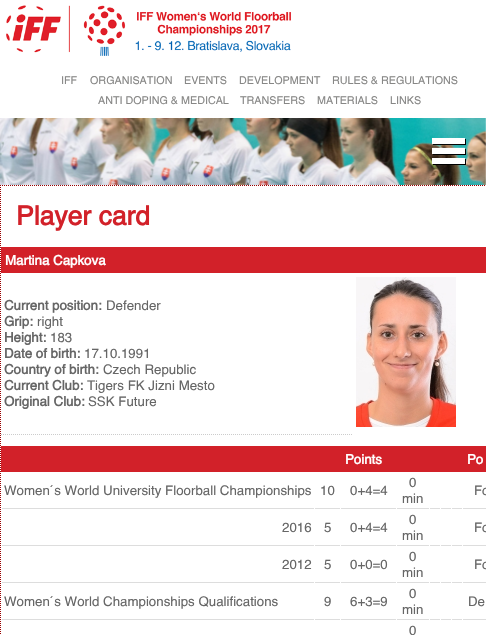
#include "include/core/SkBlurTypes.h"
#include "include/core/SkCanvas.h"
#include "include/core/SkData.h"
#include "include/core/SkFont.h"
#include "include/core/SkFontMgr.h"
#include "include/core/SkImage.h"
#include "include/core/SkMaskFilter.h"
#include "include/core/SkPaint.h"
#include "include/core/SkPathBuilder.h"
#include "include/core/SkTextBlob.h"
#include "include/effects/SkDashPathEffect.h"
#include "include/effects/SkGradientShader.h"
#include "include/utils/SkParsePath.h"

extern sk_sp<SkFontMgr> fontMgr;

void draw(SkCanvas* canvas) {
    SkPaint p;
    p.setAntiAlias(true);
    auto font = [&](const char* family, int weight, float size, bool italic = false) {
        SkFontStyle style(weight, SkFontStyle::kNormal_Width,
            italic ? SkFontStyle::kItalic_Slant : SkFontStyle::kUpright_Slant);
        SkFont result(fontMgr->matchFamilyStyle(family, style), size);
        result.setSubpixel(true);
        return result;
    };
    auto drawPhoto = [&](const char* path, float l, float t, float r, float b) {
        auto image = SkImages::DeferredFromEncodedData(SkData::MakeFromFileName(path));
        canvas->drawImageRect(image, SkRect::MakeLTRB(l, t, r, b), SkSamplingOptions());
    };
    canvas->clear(0xFFFFFFFF);
    drawPhoto("media/1.png", 0, 118, 486, 185);
    drawPhoto("media/2.png", 6, 5, 291, 56);
    auto font1 = font("Helvetica", 400, 10.75f);
    p.setColor(0xFF878786);
    {
        const struct { const char* s; float x, y; } items[] = {
            {"IFF", 61, 84},
            {"ORGANISATION", 90, 84},
            {"EVENTS", 184, 84},
            {"DEVELOPMENT", 239, 84},
            {"RULES & REGULATIONS", 332, 84},
            {"ANTI DOPING & MEDICAL", 98, 104},
            {"TRANSFERS", 240, 104},
            {"MATERIALS", 317, 104},
            {"LINKS", 390, 104},
        };
        for (auto [s, x, y] : items) {
            canvas->drawString(s, x, y, font1, p);
        }
    }
    drawPhoto("media/3.png", 432, 138, 466, 165);
    p.setStyle(SkPaint::kStroke_Style);
    p.setStrokeWidth(1);
    p.setColor(0xFF990000);
    p.setPathEffect(SkDashPathEffect::Make({{1, 1}}, 0));
    canvas->drawPath(SkPathBuilder().moveTo(0, 185.5f).lineTo(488, 185.5f).detach(), p);
    p.setPathEffect(nullptr);
    p.setPathEffect(SkDashPathEffect::Make({{1, 1}}, 0));
    canvas->drawPath(SkPathBuilder().moveTo(0.5f, 185).lineTo(0.5f, 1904).detach(), p);
    p.setPathEffect(nullptr);
    auto font2 = font("Helvetica", 700, 26.5f);
    p.setStyle(SkPaint::kFill_Style);
    p.setColor(0xFFD22129);
    canvas->drawString("Player card", 16, 225, font2, p);
    canvas->drawRect(SkRect::MakeLTRB(1, 247, 486, 273), p);
    auto font3 = font("Helvetica", 700, 13.3f);
    p.setColor(0xFFFFFFFF);
    canvas->drawString("Martina Capkova", 5, 265, font3, p);
    p.setStyle(SkPaint::kStroke_Style);
    p.setColor(0xFFCCCCCC);
    p.setPathEffect(SkDashPathEffect::Make({{1, 1}}, 0));
    canvas->drawPath(SkPathBuilder().moveTo(1, 434.5f).lineTo(352, 434.5f).detach(), p);
    p.setPathEffect(nullptr);
    p.setStyle(SkPaint::kFill_Style);
    p.setColor(0xFF666666);
    canvas->drawString("Current position:", 4, 310, font3, p);
    auto font4 = font("Helvetica", 400, 13.3f);
    canvas->drawString("Defender", 106, 310, font4, p);
    canvas->drawString("Grip:", 4, 326, font3, p);
    canvas->drawString("right", 37, 326, font4, p);
    canvas->drawString("Height:", 4, 342, font3, p);
    canvas->drawString("183", 50, 342, font4, p);
    canvas->drawString("Date of birth:", 4, 358, font3, p);
    canvas->drawString("17.10.1991", 84, 358, font4, p);
    canvas->drawString("Country of birth:", 4, 374, font3, p);
    canvas->drawString("Czech Republic", 103, 374, font4, p);
    canvas->drawString("Current Club:", 4, 390, font3, p);
    canvas->drawString("Tigers FK Jizni Mesto", 87, 390, font4, p);
    canvas->drawString("Original Club:", 4, 406, font3, p);
    canvas->drawString("SSK Future", 88, 406, font4, p);
    drawPhoto("media/4.png", 356, 277, 456, 427);
    p.setColor(0xFFD22129);
    canvas->drawRect(SkRect::MakeLTRB(1, 446, 486, 472), p);
    p.setColor(0xFFFFFFFF);
    canvas->drawString("Points", 345, 464, font3, p);
    canvas->drawString("Po", 467, 464, font3, p);
    p.setColor(0xFFDDDDDD);
    canvas->drawRect(SkRect::MakeLTRB(1, 508, 486, 509), p);
    p.setStyle(SkPaint::kStroke_Style);
    p.setColor(0xFFFFFFFF);
    p.setPathEffect(SkDashPathEffect::Make({{1, 1}}, 0));
    canvas->drawPath(SkPathBuilder().moveTo(1.5f, 472).lineTo(1.5f, 509).detach(), p);
    p.setPathEffect(nullptr);
    p.setStyle(SkPaint::kFill_Style);
    p.setColor(0xFF666666);
    canvas->drawString("Women´s World University Floorball Championships", 4, 495, font4, p);
    p.setStyle(SkPaint::kStroke_Style);
    p.setColor(0xFFFFFFFF);
    p.setPathEffect(SkDashPathEffect::Make({{1, 1}}, 0));
    canvas->drawPath(SkPathBuilder().moveTo(314.5f, 472).lineTo(314.5f, 509).moveTo(340.5f, 472).lineTo(340.5f, 509).detach(), p);
    p.setPathEffect(nullptr);
    p.setStyle(SkPaint::kFill_Style);
    p.setColor(0xFF666666);
    canvas->drawString("10", 320, 495, font4, p);
    canvas->drawString("0+4=4", 350, 495, font4, p);
    p.setStyle(SkPaint::kStroke_Style);
    p.setColor(0xFFFFFFFF);
    p.setPathEffect(SkDashPathEffect::Make({{1, 1}}, 0));
    canvas->drawPath(SkPathBuilder().moveTo(396.5f, 472).lineTo(396.5f, 509).moveTo(429.5f, 472).lineTo(429.5f, 509).moveTo(440.5f, 472).lineTo(440.5f, 509).moveTo(451.5f, 472).lineTo(451.5f, 509).detach(), p);
    p.setPathEffect(nullptr);
    p.setStyle(SkPaint::kFill_Style);
    p.setColor(0xFF666666);
    canvas->drawString("0", 409, 487, font4, p);
    canvas->drawString("min", 402, 503, font4, p);
    p.setStyle(SkPaint::kStroke_Style);
    p.setColor(0xFFFFFFFF);
    p.setPathEffect(SkDashPathEffect::Make({{1, 1}}, 0));
    canvas->drawPath(SkPathBuilder().moveTo(462.5f, 472).lineTo(462.5f, 509).detach(), p);
    p.setPathEffect(nullptr);
    p.setStyle(SkPaint::kFill_Style);
    p.setColor(0xFF666666);
    canvas->drawString("Fo", 474, 495, font4, p);
    p.setColor(0xFFDDDDDD);
    canvas->drawRect(SkRect::MakeLTRB(1, 545, 486, 546), p);
    p.setStyle(SkPaint::kStroke_Style);
    p.setColor(0xFFFFFFFF);
    p.setPathEffect(SkDashPathEffect::Make({{1, 1}}, 0));
    canvas->drawPath(SkPathBuilder().moveTo(1.5f, 509).lineTo(1.5f, 546).detach(), p);
    p.setPathEffect(nullptr);
    p.setStyle(SkPaint::kFill_Style);
    p.setColor(0xFF666666);
    canvas->drawString("2016", 282, 532, font4, p);
    p.setStyle(SkPaint::kStroke_Style);
    p.setColor(0xFFFFFFFF);
    p.setPathEffect(SkDashPathEffect::Make({{1, 1}}, 0));
    canvas->drawPath(SkPathBuilder().moveTo(314.5f, 509).lineTo(314.5f, 546).moveTo(340.5f, 509).lineTo(340.5f, 546).detach(), p);
    p.setPathEffect(nullptr);
    p.setStyle(SkPaint::kFill_Style);
    p.setColor(0xFF666666);
    canvas->drawString("5", 324, 532, font4, p);
    canvas->drawString("0+4=4", 350, 532, font4, p);
    p.setStyle(SkPaint::kStroke_Style);
    p.setColor(0xFFFFFFFF);
    p.setPathEffect(SkDashPathEffect::Make({{1, 1}}, 0));
    canvas->drawPath(SkPathBuilder().moveTo(396.5f, 509).lineTo(396.5f, 546).moveTo(429.5f, 509).lineTo(429.5f, 546).moveTo(440.5f, 509).lineTo(440.5f, 546).moveTo(451.5f, 509).lineTo(451.5f, 546).detach(), p);
    p.setPathEffect(nullptr);
    p.setStyle(SkPaint::kFill_Style);
    p.setColor(0xFF666666);
    canvas->drawString("0", 409, 524, font4, p);
    canvas->drawString("min", 402, 540, font4, p);
    p.setStyle(SkPaint::kStroke_Style);
    p.setColor(0xFFFFFFFF);
    p.setPathEffect(SkDashPathEffect::Make({{1, 1}}, 0));
    canvas->drawPath(SkPathBuilder().moveTo(462.5f, 509).lineTo(462.5f, 546).detach(), p);
    p.setPathEffect(nullptr);
    p.setStyle(SkPaint::kFill_Style);
    p.setColor(0xFF666666);
    canvas->drawString("Fo", 474, 532, font4, p);
    p.setColor(0xFFDDDDDD);
    canvas->drawRect(SkRect::MakeLTRB(1, 582, 486, 583), p);
    p.setStyle(SkPaint::kStroke_Style);
    p.setColor(0xFFFFFFFF);
    p.setPathEffect(SkDashPathEffect::Make({{1, 1}}, 0));
    canvas->drawPath(SkPathBuilder().moveTo(1.5f, 546).lineTo(1.5f, 583).detach(), p);
    p.setPathEffect(nullptr);
    p.setStyle(SkPaint::kFill_Style);
    p.setColor(0xFF666666);
    canvas->drawString("2012", 282, 569, font4, p);
    p.setStyle(SkPaint::kStroke_Style);
    p.setColor(0xFFFFFFFF);
    p.setPathEffect(SkDashPathEffect::Make({{1, 1}}, 0));
    canvas->drawPath(SkPathBuilder().moveTo(314.5f, 546).lineTo(314.5f, 583).moveTo(340.5f, 546).lineTo(340.5f, 583).detach(), p);
    p.setPathEffect(nullptr);
    p.setStyle(SkPaint::kFill_Style);
    p.setColor(0xFF666666);
    canvas->drawString("5", 324, 569, font4, p);
    canvas->drawString("0+0=0", 350, 569, font4, p);
    p.setStyle(SkPaint::kStroke_Style);
    p.setColor(0xFFFFFFFF);
    p.setPathEffect(SkDashPathEffect::Make({{1, 1}}, 0));
    canvas->drawPath(SkPathBuilder().moveTo(396.5f, 546).lineTo(396.5f, 583).moveTo(429.5f, 546).lineTo(429.5f, 583).moveTo(440.5f, 546).lineTo(440.5f, 583).moveTo(451.5f, 546).lineTo(451.5f, 583).detach(), p);
    p.setPathEffect(nullptr);
    p.setStyle(SkPaint::kFill_Style);
    p.setColor(0xFF666666);
    canvas->drawString("0", 409, 561, font4, p);
    canvas->drawString("min", 402, 577, font4, p);
    p.setStyle(SkPaint::kStroke_Style);
    p.setColor(0xFFFFFFFF);
    p.setPathEffect(SkDashPathEffect::Make({{1, 1}}, 0));
    canvas->drawPath(SkPathBuilder().moveTo(462.5f, 546).lineTo(462.5f, 583).detach(), p);
    p.setPathEffect(nullptr);
    p.setStyle(SkPaint::kFill_Style);
    p.setColor(0xFF666666);
    canvas->drawString("Fo", 474, 569, font4, p);
    p.setColor(0xFFDDDDDD);
    canvas->drawRect(SkRect::MakeLTRB(1, 619, 486, 620), p);
    p.setStyle(SkPaint::kStroke_Style);
    p.setColor(0xFFFFFFFF);
    p.setPathEffect(SkDashPathEffect::Make({{1, 1}}, 0));
    canvas->drawPath(SkPathBuilder().moveTo(1.5f, 583).lineTo(1.5f, 620).detach(), p);
    p.setPathEffect(nullptr);
    p.setStyle(SkPaint::kFill_Style);
    p.setColor(0xFF666666);
    canvas->drawString("Women´s World Championships Qualifications", 4, 606, font4, p);
    p.setStyle(SkPaint::kStroke_Style);
    p.setColor(0xFFFFFFFF);
    p.setPathEffect(SkDashPathEffect::Make({{1, 1}}, 0));
    canvas->drawPath(SkPathBuilder().moveTo(314.5f, 583).lineTo(314.5f, 620).moveTo(340.5f, 583).lineTo(340.5f, 620).detach(), p);
    p.setPathEffect(nullptr);
    p.setStyle(SkPaint::kFill_Style);
    p.setColor(0xFF666666);
    canvas->drawString("9", 324, 606, font4, p);
    canvas->drawString("6+3=9", 350, 606, font4, p);
    p.setStyle(SkPaint::kStroke_Style);
    p.setColor(0xFFFFFFFF);
    p.setPathEffect(SkDashPathEffect::Make({{1, 1}}, 0));
    canvas->drawPath(SkPathBuilder().moveTo(396.5f, 583).lineTo(396.5f, 620).moveTo(429.5f, 583).lineTo(429.5f, 620).moveTo(440.5f, 583).lineTo(440.5f, 620).moveTo(451.5f, 583).lineTo(451.5f, 620).detach(), p);
    p.setPathEffect(nullptr);
    p.setStyle(SkPaint::kFill_Style);
    p.setColor(0xFF666666);
    canvas->drawString("0", 409, 598, font4, p);
    canvas->drawString("min", 402, 614, font4, p);
    p.setStyle(SkPaint::kStroke_Style);
    p.setColor(0xFFFFFFFF);
    p.setPathEffect(SkDashPathEffect::Make({{1, 1}}, 0));
    canvas->drawPath(SkPathBuilder().moveTo(462.5f, 583).lineTo(462.5f, 620).detach(), p);
    p.setPathEffect(nullptr);
    p.setStyle(SkPaint::kFill_Style);
    p.setColor(0xFF666666);
    canvas->drawString("De", 468, 606, font4, p);
    canvas->drawString("0", 409, 635, font4, p);
}
